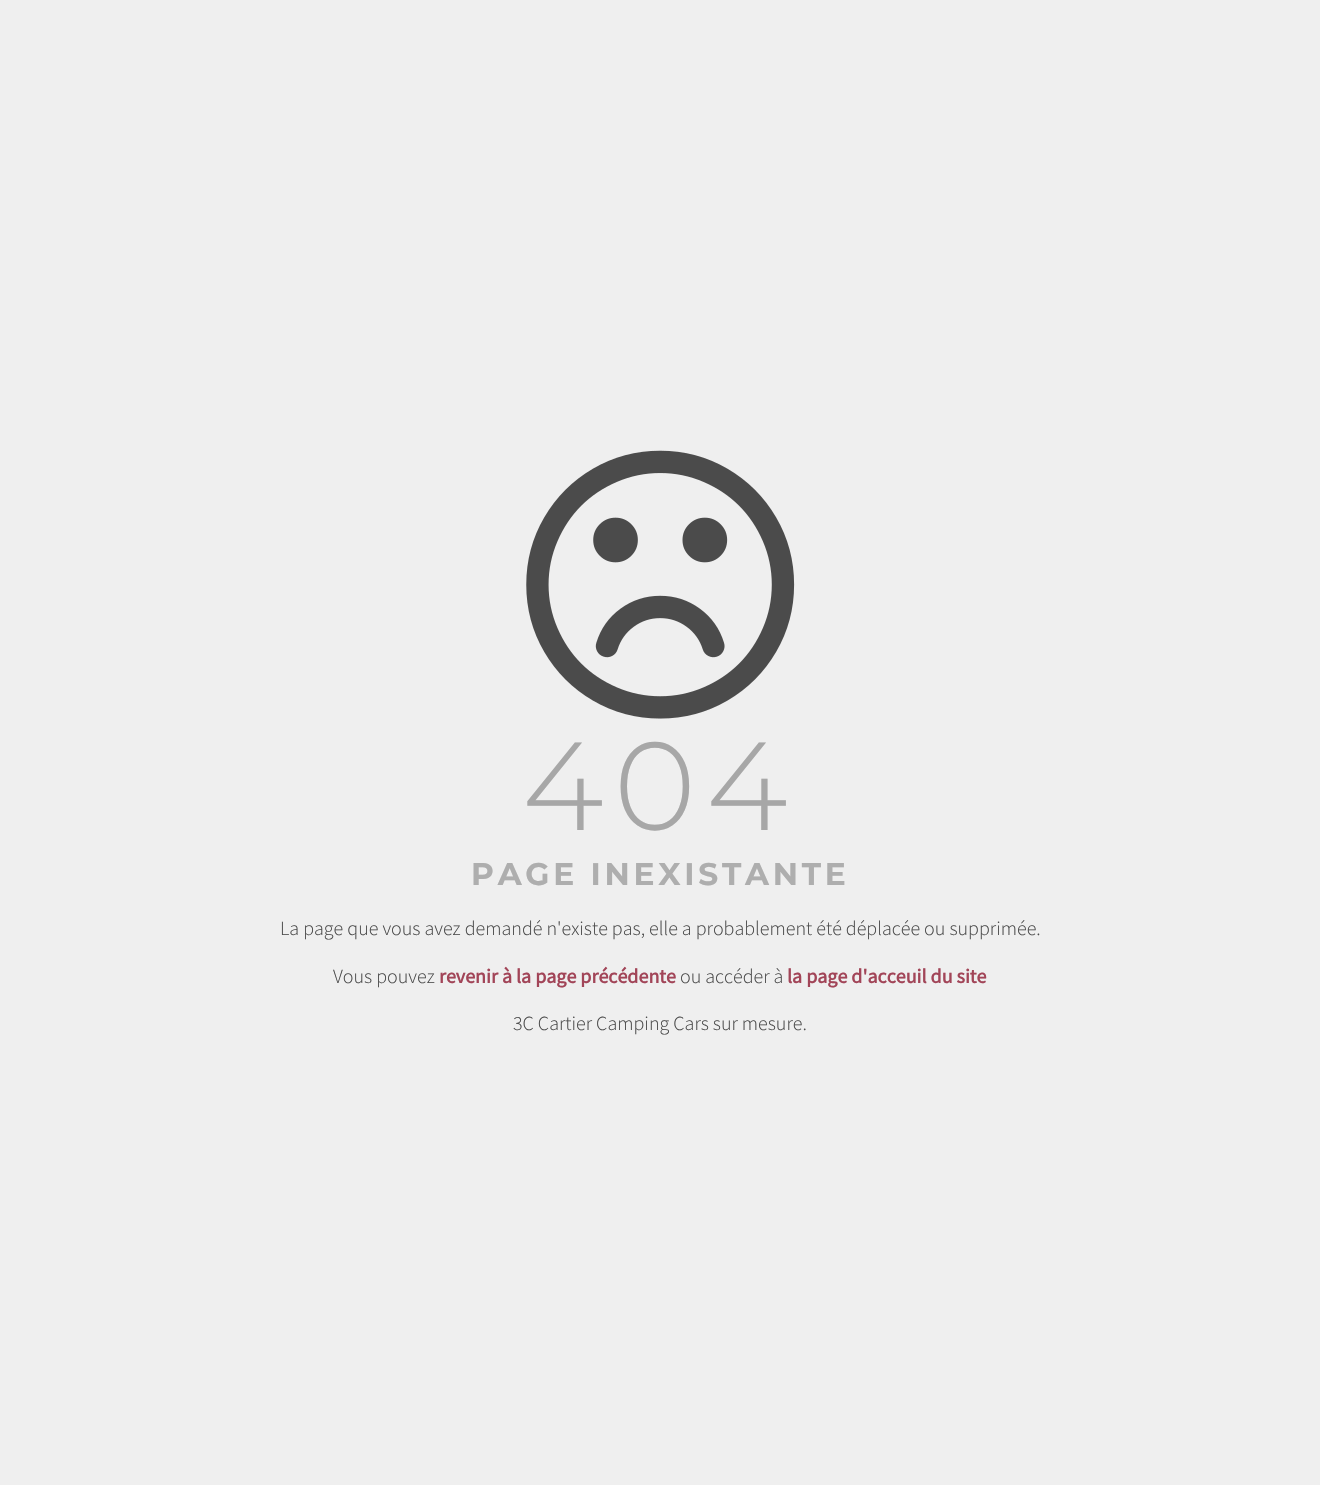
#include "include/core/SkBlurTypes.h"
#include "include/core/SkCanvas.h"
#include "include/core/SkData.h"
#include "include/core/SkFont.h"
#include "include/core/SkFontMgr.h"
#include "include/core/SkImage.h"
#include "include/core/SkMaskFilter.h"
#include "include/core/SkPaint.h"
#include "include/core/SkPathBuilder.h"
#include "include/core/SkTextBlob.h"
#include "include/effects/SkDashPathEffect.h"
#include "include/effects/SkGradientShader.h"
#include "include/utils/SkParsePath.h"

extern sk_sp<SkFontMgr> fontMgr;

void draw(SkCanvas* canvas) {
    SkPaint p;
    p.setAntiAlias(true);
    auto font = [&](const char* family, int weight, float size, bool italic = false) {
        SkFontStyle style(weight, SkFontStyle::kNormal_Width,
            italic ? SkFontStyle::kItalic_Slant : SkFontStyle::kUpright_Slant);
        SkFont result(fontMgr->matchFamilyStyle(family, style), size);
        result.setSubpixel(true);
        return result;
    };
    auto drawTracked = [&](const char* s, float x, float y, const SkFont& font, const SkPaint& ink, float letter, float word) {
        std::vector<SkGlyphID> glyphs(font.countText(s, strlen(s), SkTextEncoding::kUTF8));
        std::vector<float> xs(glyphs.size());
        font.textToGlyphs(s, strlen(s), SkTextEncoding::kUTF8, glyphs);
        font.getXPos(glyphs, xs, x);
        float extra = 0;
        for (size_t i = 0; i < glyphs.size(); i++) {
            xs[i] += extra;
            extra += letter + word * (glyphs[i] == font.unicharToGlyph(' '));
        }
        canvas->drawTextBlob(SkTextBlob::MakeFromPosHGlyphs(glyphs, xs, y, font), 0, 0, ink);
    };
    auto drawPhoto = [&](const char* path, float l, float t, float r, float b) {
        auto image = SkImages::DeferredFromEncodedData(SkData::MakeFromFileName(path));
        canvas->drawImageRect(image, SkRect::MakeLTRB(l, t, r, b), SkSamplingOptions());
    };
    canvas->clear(0xFFEFEFEF);
    drawPhoto("media/1.png", 526, 450, 795, 719);
    auto font1 = font("Montserrat", 300, 125);
    p.setColor(0xFFA7A7A7);
    drawTracked("404", 522, 830, font1, p, 10, 0);
    auto font2 = font("Montserrat", 700, 31.25f);
    p.setColor(0xFFAEAEAE);
    drawTracked("PAGE INEXISTANTE", 471, 885, font2, p, 3.75f, 0);
    auto font3 = font("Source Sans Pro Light", 300, 20);
    p.setColor(0xFF4B4B4B);
    canvas->drawString("La page que vous avez demandé n'existe pas, elle a probablement été déplacée ou supprimée.", 280, 935, font3, p);
    canvas->drawString("Vous pouvez", 333, 983, font3, p);
    auto font4 = font("Source Sans Pro", 700, 20);
    p.setColor(0xFFA24558);
    canvas->drawString("revenir à la page précédente", 439, 983, font4, p);
    p.setColor(0xFF4B4B4B);
    canvas->drawString("ou accéder à", 680, 983, font3, p);
    p.setColor(0xFFA24558);
    canvas->drawString("la page d'acceuil du site", 787, 983, font4, p);
    p.setColor(0xFF4B4B4B);
    canvas->drawString("3C Cartier Camping Cars sur mesure.", 513, 1030, font3, p);
}
